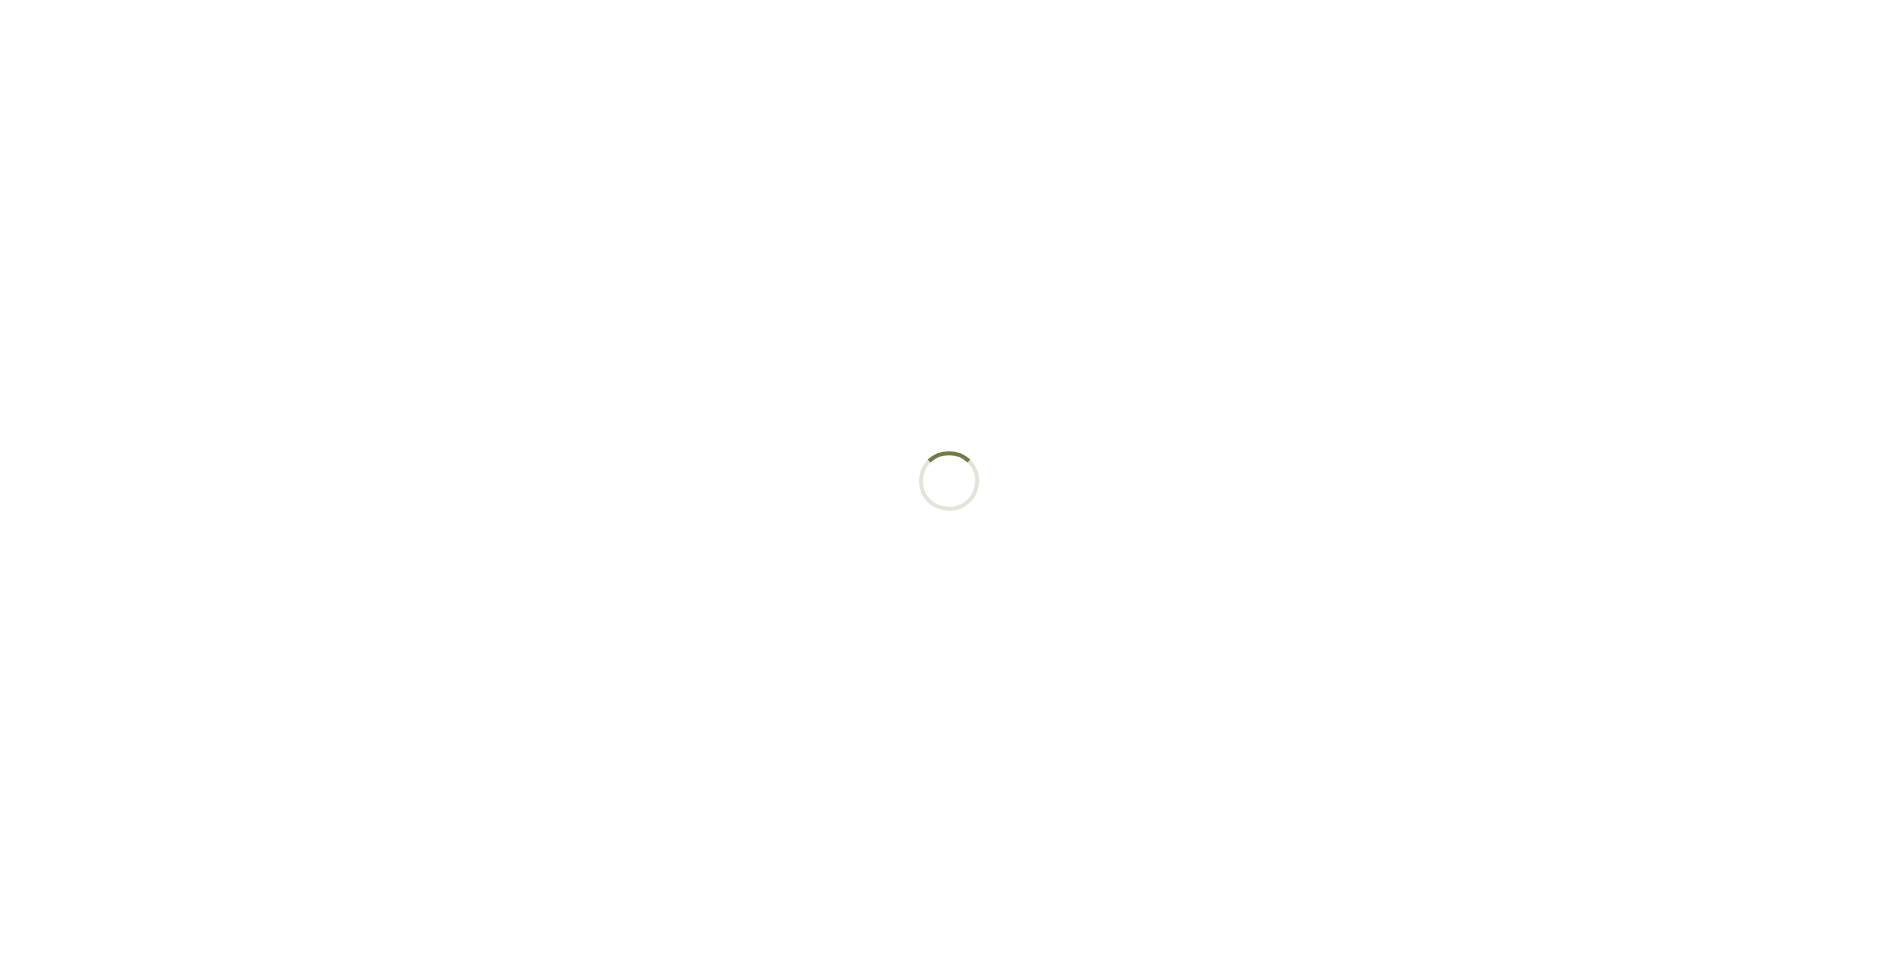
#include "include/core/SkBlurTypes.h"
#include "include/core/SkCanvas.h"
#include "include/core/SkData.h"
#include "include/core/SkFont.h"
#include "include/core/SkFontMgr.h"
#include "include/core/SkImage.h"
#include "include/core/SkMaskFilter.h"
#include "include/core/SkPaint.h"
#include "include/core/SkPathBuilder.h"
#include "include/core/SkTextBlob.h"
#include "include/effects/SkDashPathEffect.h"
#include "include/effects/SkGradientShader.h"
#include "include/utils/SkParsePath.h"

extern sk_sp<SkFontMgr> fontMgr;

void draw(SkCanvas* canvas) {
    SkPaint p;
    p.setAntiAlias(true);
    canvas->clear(0xFFFFFFFF);
    p.setStyle(SkPaint::kStroke_Style);
    p.setStrokeWidth(4);
    p.setColor(0xFF747A43);
    canvas->drawPath(SkPathBuilder().moveTo(929, 461).cubicTo(940, 450.5f, 958, 450.5f, 969, 461).detach(), p);
    p.setColor(0x33747A43);
    canvas->drawPath(SkPathBuilder().moveTo(969, 461).cubicTo(975.5f, 468, 978.5f, 477.5f, 976.5f, 486.5f).cubicTo(970, 519, 921, 514.5f, 921, 481).cubicTo(921, 473.5f, 924, 466.5f, 929, 461).detach(), p);
}
